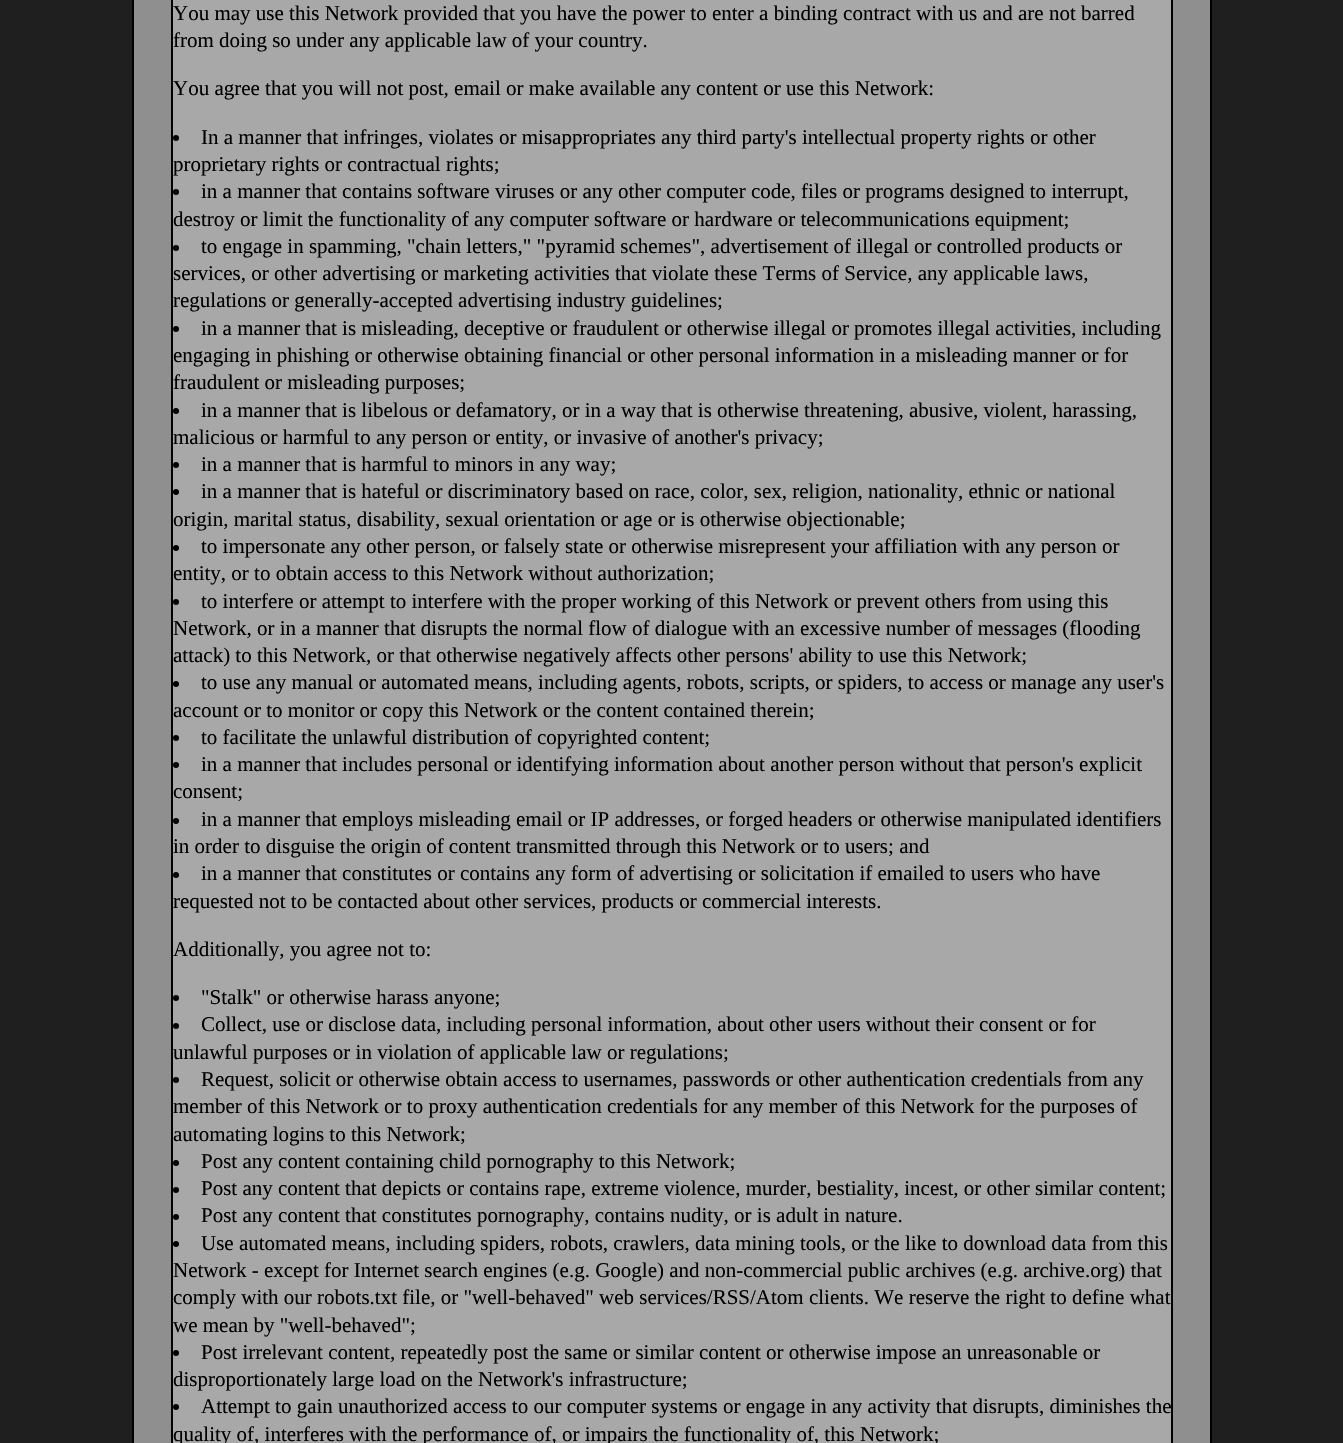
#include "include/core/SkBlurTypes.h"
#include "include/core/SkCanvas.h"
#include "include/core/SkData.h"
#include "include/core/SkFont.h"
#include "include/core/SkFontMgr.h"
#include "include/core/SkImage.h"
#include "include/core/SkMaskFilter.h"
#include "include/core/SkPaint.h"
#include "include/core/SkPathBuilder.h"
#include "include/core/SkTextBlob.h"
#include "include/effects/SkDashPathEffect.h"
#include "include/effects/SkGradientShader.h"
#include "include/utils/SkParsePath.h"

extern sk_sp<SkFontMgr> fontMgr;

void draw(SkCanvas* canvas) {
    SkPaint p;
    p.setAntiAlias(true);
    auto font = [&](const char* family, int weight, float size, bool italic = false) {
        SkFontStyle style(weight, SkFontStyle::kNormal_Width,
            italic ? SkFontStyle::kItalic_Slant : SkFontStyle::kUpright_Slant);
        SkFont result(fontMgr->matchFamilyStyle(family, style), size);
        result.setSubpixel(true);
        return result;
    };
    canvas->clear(0xFF1F1F1F);
    p.setColor(0xFF8F8F8F);
    canvas->drawRect(SkRect::MakeLTRB(133, -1, 1211, 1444), p);
    p.setStyle(SkPaint::kStroke_Style);
    p.setStrokeWidth(2);
    p.setColor(0xFF000000);
    canvas->drawRect(SkRect::MakeLTRB(133, -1, 1211, 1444), p);
    p.setStyle(SkPaint::kFill_Style);
    p.setColor(0xFFA8A8A8);
    canvas->drawRect(SkRect::MakeLTRB(172, -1, 1172, 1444), p);
    p.setStyle(SkPaint::kStroke_Style);
    p.setColor(0xFF000000);
    canvas->drawRect(SkRect::MakeLTRB(172, -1, 1172, 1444), p);
    auto font1 = font("Liberation Serif", 400, 21);
    p.setStyle(SkPaint::kFill_Style);
    {
        const struct { const char* s; float x, y; } items[] = {
            {"You may use this Network provided that you have the power to enter a binding contract with us and are not barred", 173, 20},
            {"from doing so under any applicable law of your country.", 173, 47},
            {"You agree that you will not post, email or make available any content or use this Network:", 173, 95},
        };
        for (auto [s, x, y] : items) {
            canvas->drawString(s, x, y, font1, p);
        }
    }
    canvas->drawCircle(176, 138, 3, p);
    canvas->drawString("In a manner that infringes, violates or misappropriates any third party's intellectual property rights or other", 201, 144, font1, p);
    canvas->drawString("proprietary rights or contractual rights;", 173, 171, font1, p);
    canvas->drawCircle(176, 192, 3, p);
    canvas->drawString("in a manner that contains software viruses or any other computer code, files or programs designed to interrupt,", 201, 198, font1, p);
    canvas->drawString("destroy or limit the functionality of any computer software or hardware or telecommunications equipment;", 173, 226, font1, p);
    canvas->drawCircle(176, 248, 3, p);
    {
        const struct { const char* s; float x, y; } items[] = {
            {"to engage in spamming, \"chain letters,\" \"pyramid schemes\", advertisement of illegal or controlled products or", 201, 253},
            {"services, or other advertising or marketing activities that violate these Terms of Service, any applicable laws,", 173, 280},
            {"regulations or generally-accepted advertising industry guidelines;", 173, 307},
        };
        for (auto [s, x, y] : items) {
            canvas->drawString(s, x, y, font1, p);
        }
    }
    canvas->drawCircle(176, 329, 3, p);
    {
        const struct { const char* s; float x, y; } items[] = {
            {"in a manner that is misleading, deceptive or fraudulent or otherwise illegal or promotes illegal activities, including", 201, 335},
            {"engaging in phishing or otherwise obtaining financial or other personal information in a misleading manner or for", 173, 362},
            {"fraudulent or misleading purposes;", 173, 389},
        };
        for (auto [s, x, y] : items) {
            canvas->drawString(s, x, y, font1, p);
        }
    }
    canvas->drawCircle(176, 411, 3, p);
    canvas->drawString("in a manner that is libelous or defamatory, or in a way that is otherwise threatening, abusive, violent, harassing,", 201, 417, font1, p);
    canvas->drawString("malicious or harmful to any person or entity, or invasive of another's privacy;", 173, 444, font1, p);
    canvas->drawCircle(176, 465, 3, p);
    canvas->drawString("in a manner that is harmful to minors in any way;", 201, 471, font1, p);
    canvas->drawCircle(176, 492, 3, p);
    canvas->drawString("in a manner that is hateful or discriminatory based on race, color, sex, religion, nationality, ethnic or national", 201, 498, font1, p);
    canvas->drawString("origin, marital status, disability, sexual orientation or age or is otherwise objectionable;", 173, 526, font1, p);
    canvas->drawCircle(176, 548, 3, p);
    canvas->drawString("to impersonate any other person, or falsely state or otherwise misrepresent your affiliation with any person or", 201, 553, font1, p);
    canvas->drawString("entity, or to obtain access to this Network without authorization;", 173, 580, font1, p);
    canvas->drawCircle(176, 602, 3, p);
    {
        const struct { const char* s; float x, y; } items[] = {
            {"to interfere or attempt to interfere with the proper working of this Network or prevent others from using this", 201, 608},
            {"Network, or in a manner that disrupts the normal flow of dialogue with an excessive number of messages (flooding", 173, 635},
            {"attack) to this Network, or that otherwise negatively affects other persons' ability to use this Network;", 173, 662},
        };
        for (auto [s, x, y] : items) {
            canvas->drawString(s, x, y, font1, p);
        }
    }
    canvas->drawCircle(176, 684, 3, p);
    canvas->drawString("to use any manual or automated means, including agents, robots, scripts, or spiders, to access or manage any user's", 201, 689, font1, p);
    canvas->drawString("account or to monitor or copy this Network or the content contained therein;", 173, 717, font1, p);
    canvas->drawCircle(176, 738, 3, p);
    canvas->drawString("to facilitate the unlawful distribution of copyrighted content;", 201, 744, font1, p);
    canvas->drawCircle(176, 765, 3, p);
    canvas->drawString("in a manner that includes personal or identifying information about another person without that person's explicit", 201, 771, font1, p);
    canvas->drawString("consent;", 173, 798, font1, p);
    canvas->drawCircle(176, 821, 3, p);
    canvas->drawString("in a manner that employs misleading email or IP addresses, or forged headers or otherwise manipulated identifiers", 201, 826, font1, p);
    canvas->drawString("in order to disguise the origin of content transmitted through this Network or to users; and", 173, 853, font1, p);
    canvas->drawCircle(176, 875, 3, p);
    {
        const struct { const char* s; float x, y; } items[] = {
            {"in a manner that constitutes or contains any form of advertising or solicitation if emailed to users who have", 201, 880},
            {"requested not to be contacted about other services, products or commercial interests.", 173, 908},
            {"Additionally, you agree not to:", 173, 956},
        };
        for (auto [s, x, y] : items) {
            canvas->drawString(s, x, y, font1, p);
        }
    }
    canvas->drawCircle(176, 998, 3, p);
    canvas->drawString("\"Stalk\" or otherwise harass anyone;", 201, 1004, font1, p);
    canvas->drawCircle(176, 1026, 3, p);
    canvas->drawString("Collect, use or disclose data, including personal information, about other users without their consent or for", 201, 1031, font1, p);
    canvas->drawString("unlawful purposes or in violation of applicable law or regulations;", 173, 1059, font1, p);
    canvas->drawCircle(176, 1080, 3, p);
    {
        const struct { const char* s; float x, y; } items[] = {
            {"Request, solicit or otherwise obtain access to usernames, passwords or other authentication credentials from any", 201, 1086},
            {"member of this Network or to proxy authentication credentials for any member of this Network for the purposes of", 173, 1113},
            {"automating logins to this Network;", 173, 1141},
        };
        for (auto [s, x, y] : items) {
            canvas->drawString(s, x, y, font1, p);
        }
    }
    canvas->drawCircle(176, 1163, 3, p);
    canvas->drawString("Post any content containing child pornography to this Network;", 201, 1168, font1, p);
    canvas->drawCircle(176, 1190, 3, p);
    canvas->drawString("Post any content that depicts or contains rape, extreme violence, murder, bestiality, incest, or other similar content;", 201, 1195, font1, p);
    canvas->drawCircle(176, 1217, 3, p);
    canvas->drawString("Post any content that constitutes pornography, contains nudity, or is adult in nature.", 201, 1222, font1, p);
    canvas->drawCircle(176, 1244, 3, p);
    {
        const struct { const char* s; float x, y; } items[] = {
            {"Use automated means, including spiders, robots, crawlers, data mining tools, or the like to download data from this", 201, 1250},
            {"Network - except for Internet search engines (e.g. Google) and non-commercial public archives (e.g. archive.org) that", 173, 1277},
            {"comply with our robots.txt file, or \"well-behaved\" web services/RSS/Atom clients. We reserve the right to define what", 173, 1304},
            {"we mean by \"well-behaved\";", 173, 1332},
        };
        for (auto [s, x, y] : items) {
            canvas->drawString(s, x, y, font1, p);
        }
    }
    canvas->drawCircle(176, 1353, 3, p);
    canvas->drawString("Post irrelevant content, repeatedly post the same or similar content or otherwise impose an unreasonable or", 201, 1359, font1, p);
    canvas->drawString("disproportionately large load on the Network's infrastructure;", 173, 1386, font1, p);
    canvas->drawCircle(176, 1407, 3, p);
    canvas->drawString("Attempt to gain unauthorized access to our computer systems or engage in any activity that disrupts, diminishes the", 201, 1413, font1, p);
    canvas->drawString("quality of, interferes with the performance of, or impairs the functionality of, this Network;", 173, 1441, font1, p);
}
